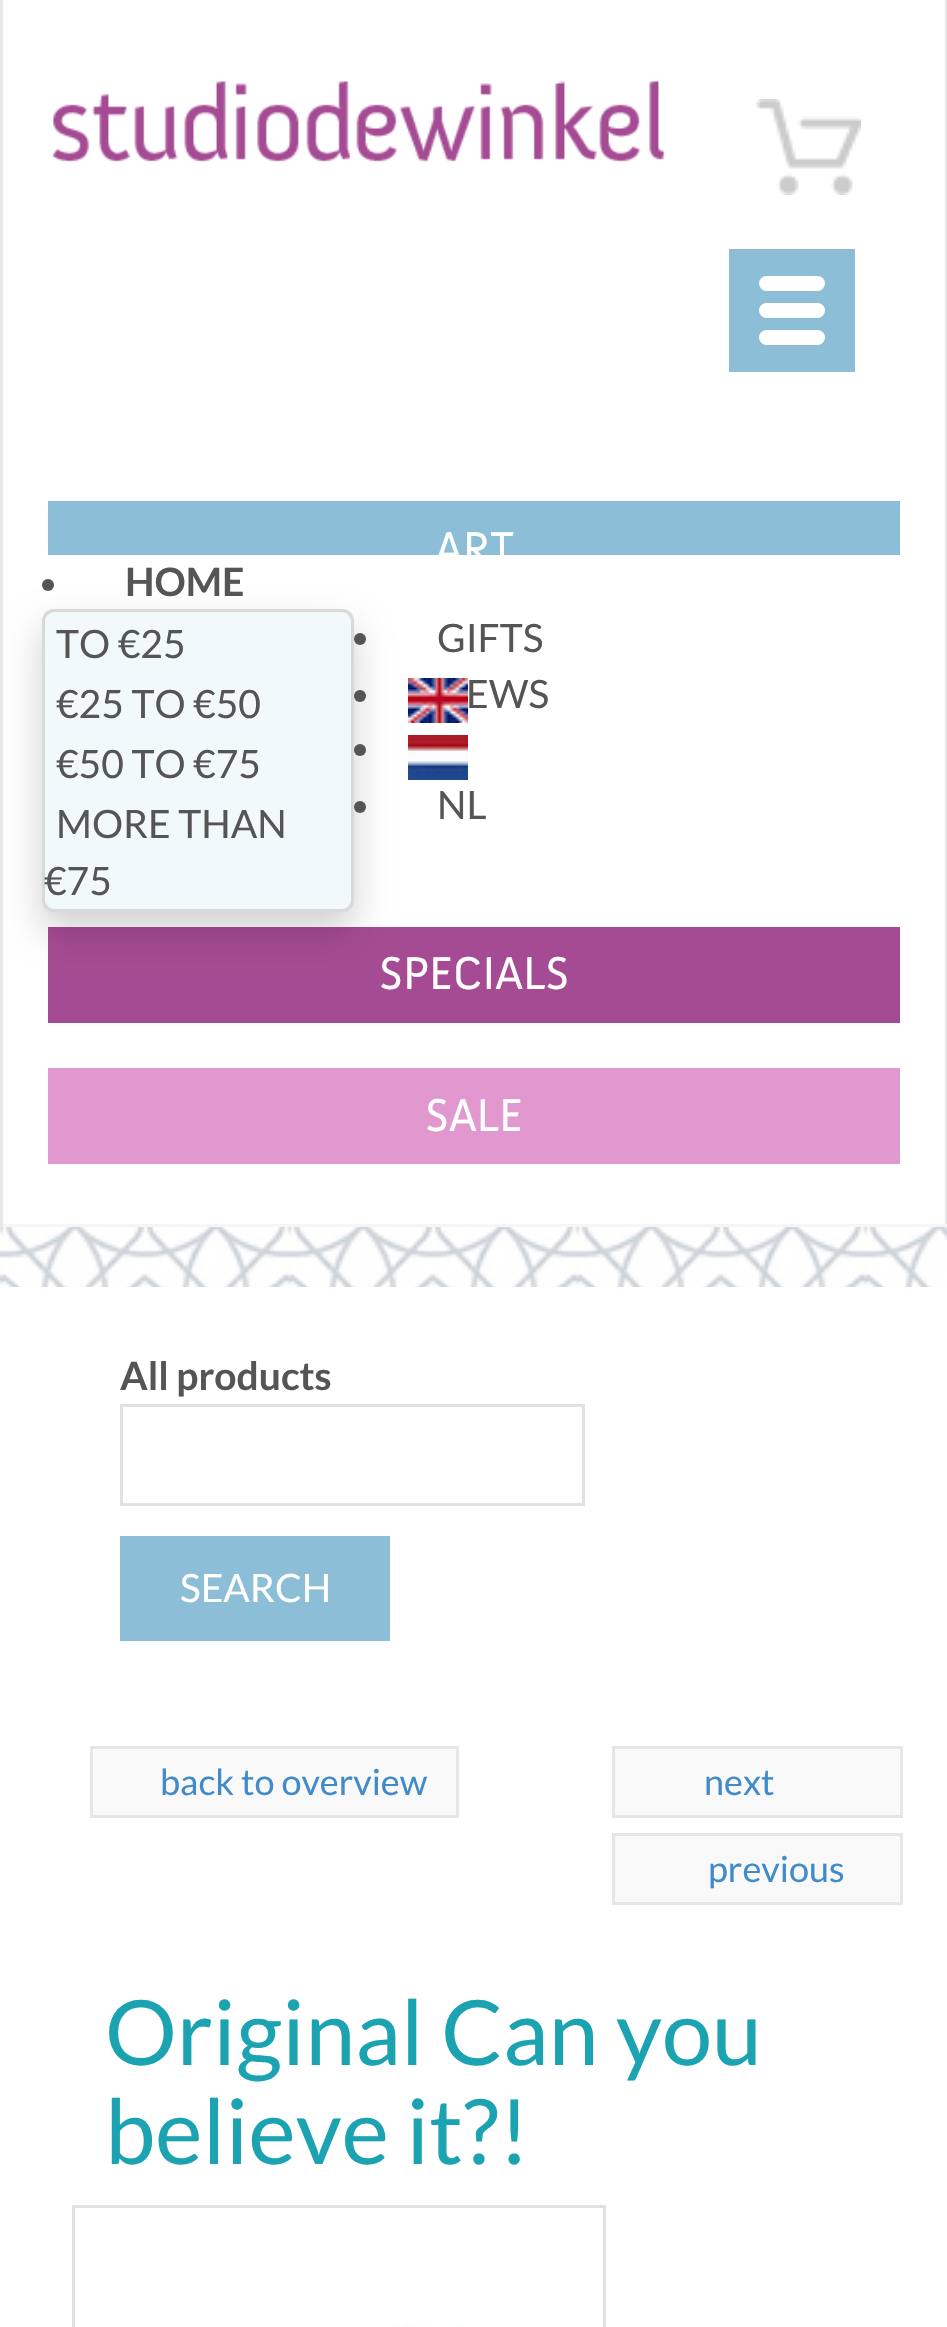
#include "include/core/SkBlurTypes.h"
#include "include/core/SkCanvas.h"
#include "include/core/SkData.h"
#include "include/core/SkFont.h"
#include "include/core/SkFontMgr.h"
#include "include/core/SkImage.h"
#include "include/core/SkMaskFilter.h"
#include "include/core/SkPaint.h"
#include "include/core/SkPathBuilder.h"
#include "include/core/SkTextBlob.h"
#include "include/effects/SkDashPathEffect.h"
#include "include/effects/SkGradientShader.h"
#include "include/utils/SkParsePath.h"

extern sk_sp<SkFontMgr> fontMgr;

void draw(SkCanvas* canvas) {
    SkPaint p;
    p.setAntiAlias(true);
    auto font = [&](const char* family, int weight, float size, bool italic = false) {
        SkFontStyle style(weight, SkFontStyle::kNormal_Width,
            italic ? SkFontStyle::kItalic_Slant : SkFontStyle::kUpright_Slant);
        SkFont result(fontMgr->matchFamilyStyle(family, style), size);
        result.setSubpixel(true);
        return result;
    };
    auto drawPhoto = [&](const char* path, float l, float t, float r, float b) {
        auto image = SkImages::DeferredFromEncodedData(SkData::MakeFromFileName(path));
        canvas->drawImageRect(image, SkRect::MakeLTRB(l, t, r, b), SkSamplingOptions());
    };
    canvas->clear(0xFFFFFFFF);
    drawPhoto("media/1.png", 0, 1227, 947, 1287);
    {
        const struct { float l, t, r, b; SkColor color; } items[] = {
            {945, 0, 947, 1227, 0xFFE7E7E7},
            {0, 1224, 947, 1227, 0xFFF8F6F5},
            {0, 0, 3, 1227, 0xFFE7E7E7},
            {48, 501, 900, 555, 0xFF8CBED7},
        };
        for (auto [l, t, r, b, color] : items) {
            p.setColor(color);
            canvas->drawRect(SkRect::MakeLTRB(l, t, r, b), p);
        }
    }
    auto font1 = font("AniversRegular", 400, 47);
    p.setColor(0xFFFFFFFF);
    canvas->drawString("ART", 435, 564, font1, p);
    p.setColor(0xFFA54B93);
    canvas->drawRect(SkRect::MakeLTRB(48, 927, 900, 1023), p);
    p.setColor(0xFFFFFFFF);
    canvas->drawString("SPECIALS", 379, 989, font1, p);
    p.setColor(0xFFE198CF);
    canvas->drawRect(SkRect::MakeLTRB(48, 1068, 900, 1164), p);
    p.setColor(0xFFFFFFFF);
    canvas->drawString("SALE", 425, 1131, font1, p);
    drawPhoto("media/2.png", 51, 79, 666, 162);
    drawPhoto("media/3.png", 756, 99, 861, 195);
    p.setColor(0xFF8CBED7);
    canvas->drawRect(SkRect::MakeLTRB(729, 249, 855, 372), p);
    p.setColor(0xFFFFFFFF);
    canvas->drawRoundRect(SkRect::MakeLTRB(759, 276, 825, 291), 7.5f, 7.5f, p);
    canvas->drawRoundRect(SkRect::MakeLTRB(759, 303, 825, 318), 7.5f, 7.5f, p);
    canvas->drawRoundRect(SkRect::MakeLTRB(759, 330, 825, 345), 7.5f, 7.5f, p);
    canvas->save();
    canvas->clipPath(SkPathBuilder(SkPathFillType::kEvenOdd).moveTo(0, 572).lineTo(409, 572).lineTo(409, 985).lineTo(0, 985).close().moveTo(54, 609).lineTo(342, 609).cubicTo(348.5f, 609, 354, 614.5f, 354, 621).lineTo(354, 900).cubicTo(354, 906.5f, 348.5f, 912, 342, 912).lineTo(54, 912).cubicTo(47.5f, 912, 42, 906.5f, 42, 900).lineTo(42, 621).cubicTo(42, 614.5f, 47.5f, 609, 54, 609).close().detach(), true);
    p.setColor(0x2E000000);
    p.setMaskFilter(SkMaskFilter::MakeBlur(kNormal_SkBlurStyle, 18));
    canvas->drawRoundRect(SkRect::MakeLTRB(42, 627, 354, 930), 12, 12, p);
    p.setMaskFilter(nullptr);
    canvas->restore();
    p.setColor(0xFF555555);
    canvas->drawCircle(48, 585, 6, p);
    auto font2 = font("Lato", 700, 39);
    canvas->drawString("HOME", 125, 596, font2, p);
    p.setColor(0xFFF1F9FB);
    canvas->drawRoundRect(SkRect::MakeLTRB(45, 612, 351, 909), 9, 9, p);
    p.setStyle(SkPaint::kStroke_Style);
    p.setStrokeWidth(3);
    p.setColor(0x26000000);
    canvas->drawRoundRect(SkRect::MakeLTRB(43.5f, 610.5f, 352.5f, 910.5f), 10.5f, 10.5f, p);
    auto font3 = font("Lato", 400, 39);
    p.setStyle(SkPaint::kFill_Style);
    p.setColor(0xFF555555);
    {
        const struct { const char* s; float x, y; } items[] = {
            {"TO €25", 56, 658},
            {"€25 TO €50", 56, 718},
            {"€50 TO €75", 56, 778},
            {"MORE THAN", 56, 838},
            {"€75", 44, 895},
        };
        for (auto [s, x, y] : items) {
            canvas->drawString(s, x, y, font3, p);
        }
    }
    canvas->drawCircle(360, 639, 6, p);
    canvas->drawString("GIFTS", 437, 652, font3, p);
    drawPhoto("media/4.png", 408, 678, 468, 723);
    canvas->drawCircle(360, 750, 6, p);
    canvas->drawCircle(360, 696, 6, p);
    canvas->drawString("EWS", 466, 708, font3, p);
    drawPhoto("media/5.png", 408, 735, 468, 780);
    canvas->drawCircle(360, 807, 6, p);
    canvas->drawString("NL", 437, 819, font3, p);
    canvas->drawString("All products", 120, 1390, font2, p);
    p.setStyle(SkPaint::kStroke_Style);
    p.setColor(0xFFE1E1E1);
    canvas->drawRect(SkRect::MakeLTRB(121.5f, 1405.5f, 583.5f, 1504.5f), p);
    p.setStyle(SkPaint::kFill_Style);
    p.setColor(0xFF8CBED7);
    canvas->drawRect(SkRect::MakeLTRB(120, 1536, 390, 1641), p);
    p.setColor(0xFFFFFFFF);
    canvas->drawString("SEARCH", 180, 1602, font3, p);
    p.setColor(0xFFF9F9F9);
    canvas->drawRect(SkRect::MakeLTRB(91.5f, 1747.5f, 457.5f, 1816.5f), p);
    p.setStyle(SkPaint::kStroke_Style);
    p.setColor(0xFFE6E6E6);
    canvas->drawRect(SkRect::MakeLTRB(91.5f, 1747.5f, 457.5f, 1816.5f), p);
    auto font4 = font("Lato", 400, 36);
    p.setStyle(SkPaint::kFill_Style);
    p.setColor(0xFF428BCA);
    canvas->drawString("back to overview", 160, 1795, font4, p);
    p.setColor(0xFFF9F9F9);
    canvas->drawRect(SkRect::MakeLTRB(613.5f, 1747.5f, 901.5f, 1816.5f), p);
    p.setStyle(SkPaint::kStroke_Style);
    p.setColor(0xFFE6E6E6);
    canvas->drawRect(SkRect::MakeLTRB(613.5f, 1747.5f, 901.5f, 1816.5f), p);
    p.setStyle(SkPaint::kFill_Style);
    p.setColor(0xFF428BCA);
    canvas->drawString("next", 704, 1795, font4, p);
    p.setColor(0xFFF9F9F9);
    canvas->drawRect(SkRect::MakeLTRB(613.5f, 1834.5f, 901.5f, 1903.5f), p);
    p.setStyle(SkPaint::kStroke_Style);
    p.setColor(0xFFE6E6E6);
    canvas->drawRect(SkRect::MakeLTRB(613.5f, 1834.5f, 901.5f, 1903.5f), p);
    p.setStyle(SkPaint::kFill_Style);
    p.setColor(0xFF428BCA);
    canvas->drawString("previous", 708, 1882, font4, p);
    auto font5 = font("Lato", 400, 90);
    p.setColor(0xFF1CA3B1);
    canvas->drawString("Original Can you", 105, 2065, font5, p);
    canvas->drawString("believe it?!", 105, 2164, font5, p);
    drawPhoto("media/6.png", 391, 2322, 465, 2327);
    p.setStyle(SkPaint::kStroke_Style);
    p.setColor(0xFFE1E1E1);
    canvas->drawRect(SkRect::MakeLTRB(73.5f, 2206.5f, 604.5f, 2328.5f), p);
}
